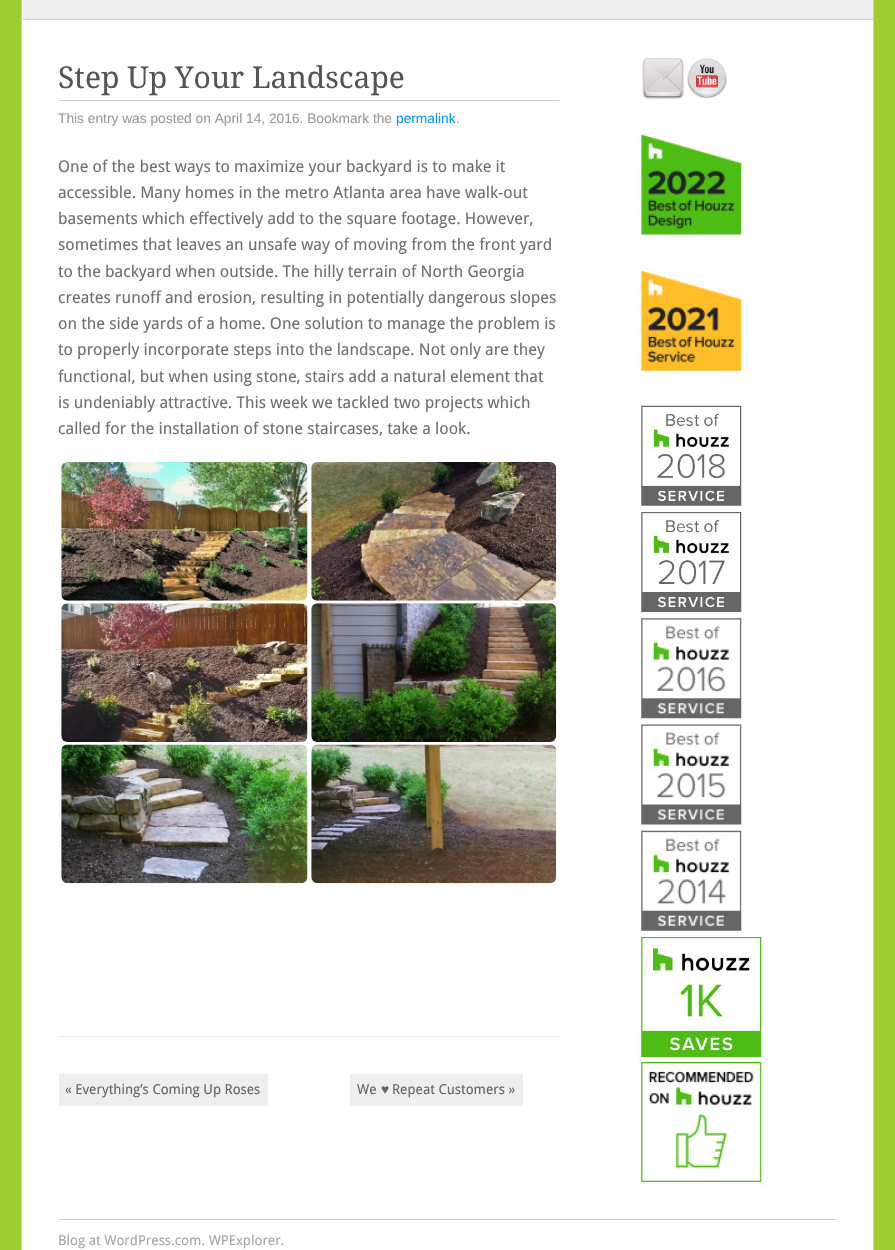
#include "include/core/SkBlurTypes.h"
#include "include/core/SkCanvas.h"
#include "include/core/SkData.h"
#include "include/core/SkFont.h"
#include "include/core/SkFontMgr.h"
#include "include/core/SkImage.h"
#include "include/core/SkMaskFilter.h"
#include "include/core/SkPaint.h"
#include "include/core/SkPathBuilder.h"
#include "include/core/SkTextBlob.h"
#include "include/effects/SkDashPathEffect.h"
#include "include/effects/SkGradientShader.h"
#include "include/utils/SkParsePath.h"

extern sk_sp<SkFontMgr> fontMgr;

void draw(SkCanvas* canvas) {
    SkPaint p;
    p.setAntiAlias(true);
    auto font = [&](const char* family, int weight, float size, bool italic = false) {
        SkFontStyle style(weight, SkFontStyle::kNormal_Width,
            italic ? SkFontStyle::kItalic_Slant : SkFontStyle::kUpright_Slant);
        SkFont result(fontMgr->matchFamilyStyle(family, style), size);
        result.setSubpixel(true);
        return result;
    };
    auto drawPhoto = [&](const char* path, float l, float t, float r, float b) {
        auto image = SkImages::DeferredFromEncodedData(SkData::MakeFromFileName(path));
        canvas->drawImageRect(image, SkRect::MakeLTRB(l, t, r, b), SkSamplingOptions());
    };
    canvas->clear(0xFF9ECD32);
    p.setColor(0xFFFFFFFF);
    canvas->drawRect(SkRect::MakeLTRB(21.5f, -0.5f, 873.5f, 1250.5f), p);
    p.setStyle(SkPaint::kStroke_Style);
    p.setStrokeWidth(1);
    p.setColor(0xFFCCCCCC);
    canvas->drawRect(SkRect::MakeLTRB(21.5f, -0.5f, 873.5f, 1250.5f), p);
    p.setStyle(SkPaint::kFill_Style);
    {
        const struct { float l, t, r, b; SkColor color; } items[] = {
            {23, 0, 873, 19, 0xFFEFEFEF},
            {23, 19, 873, 20, 0xFFCCCCCC},
            {59, 1036, 559, 1037, 0xFFEEEEEE},
            {59, 100, 559, 101, 0xFFCCCCCC},
        };
        for (auto [l, t, r, b, color] : items) {
            p.setColor(color);
            canvas->drawRect(SkRect::MakeLTRB(l, t, r, b), p);
        }
    }
    auto font1 = font("Droid Serif", 400, 30);
    p.setColor(0xFF545454);
    canvas->drawString("Step Up Your Landscape", 58, 88, font1, p);
    auto font2 = font("Liberation Sans", 400, 13.75f);
    p.setColor(0xFF999999);
    canvas->drawString("This entry was posted on April 14, 2016. Bookmark the", 58, 123, font2, p);
    p.setColor(0xFF0099FF);
    canvas->drawString("permalink", 396, 123, font2, p);
    p.setColor(0xFF999999);
    canvas->drawString(".", 456, 123, font2, p);
    auto font3 = font("Droid Sans", 400, 16.25f);
    p.setColor(0xFF707070);
    {
        const struct { const char* s; float x, y; } items[] = {
            {"One of the best ways to maximize your backyard is to make it", 58, 172},
            {"accessible. Many homes in the metro Atlanta area have walk-out", 58, 198},
            {"basements which effectively add to the square footage. However,", 58, 224},
            {"sometimes that leaves an unsafe way of moving from the front yard", 58, 250},
            {"to the backyard when outside. The hilly terrain of North Georgia", 58, 277},
            {"creates runoff and erosion, resulting in potentially dangerous slopes", 58, 303},
            {"on the side yards of a home. One solution to manage the problem is", 58, 329},
            {"to properly incorporate steps into the landscape. Not only are they", 58, 355},
            {"functional, but when using stone, stairs add a natural element that", 58, 382},
            {"is undeniably attractive. This week we tackled two projects which", 58, 408},
            {"called for the installation of stone staircases, take a look.", 58, 434},
        };
        for (auto [s, x, y] : items) {
            canvas->drawString(s, x, y, font3, p);
        }
    }
    drawPhoto("media/1.png", 61, 462, 308, 601);
    drawPhoto("media/2.png", 311, 462, 557, 601);
    drawPhoto("media/3.png", 61, 603, 308, 742);
    drawPhoto("media/4.png", 311, 603, 557, 742);
    drawPhoto("media/5.png", 61, 744, 308, 884);
    drawPhoto("media/6.png", 311, 744, 557, 884);
    p.setColor(0xFFEEEEEE);
    canvas->drawRect(SkRect::MakeLTRB(59, 1074, 268, 1106), p);
    auto font4 = font("Droid Sans", 400, 13.75f);
    p.setColor(0xFF666666);
    canvas->drawString("« Everything’s Coming Up Roses", 65, 1094, font4, p);
    p.setColor(0xFFEEEEEE);
    canvas->drawRect(SkRect::MakeLTRB(350, 1074, 523, 1106), p);
    p.setColor(0xFF666666);
    canvas->drawString("We", 357, 1094, font4, p);
    canvas->drawString("♥", 381, 1094, font2, p);
    canvas->drawString("Repeat Customers »", 392, 1094, font4, p);
    drawPhoto("media/7.png", 642, 58, 684, 100);
    drawPhoto("media/8.png", 687, 58, 727, 99);
    drawPhoto("media/9.png", 641, 134, 742, 235);
    drawPhoto("media/10.png", 641, 270, 742, 371);
    drawPhoto("media/11.png", 641, 405, 742, 506);
    drawPhoto("media/12.png", 641, 512, 742, 612);
    drawPhoto("media/13.png", 641, 618, 742, 719);
    drawPhoto("media/14.png", 641, 724, 742, 825);
    drawPhoto("media/15.png", 641, 830, 742, 931);
    drawPhoto("media/16.png", 641, 937, 762, 1057);
    drawPhoto("media/17.png", 641, 1062, 762, 1182);
    p.setColor(0xFFCCCCCC);
    canvas->drawRect(SkRect::MakeLTRB(59, 1219, 836, 1220), p);
    p.setColor(0xFFA7A7A7);
    canvas->drawString("Blog at WordPress.com. WPExplorer.", 58, 1245, font4, p);
}
